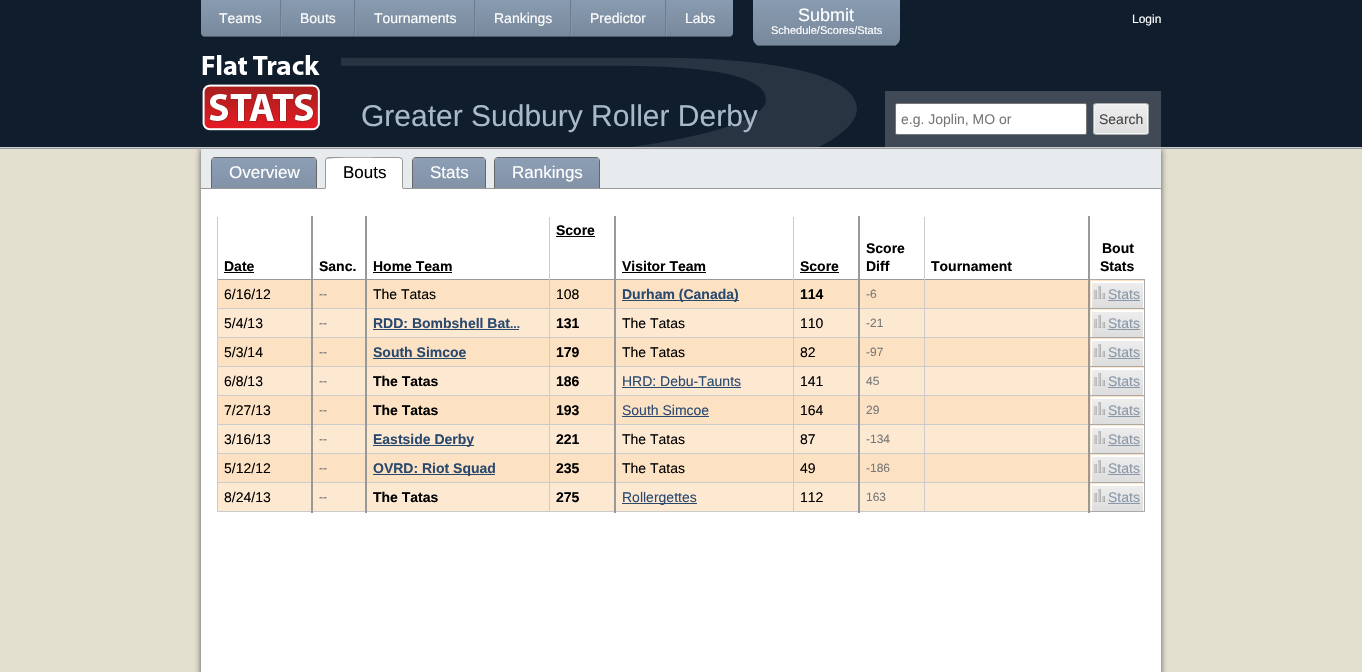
#include "include/core/SkBlurTypes.h"
#include "include/core/SkCanvas.h"
#include "include/core/SkData.h"
#include "include/core/SkFont.h"
#include "include/core/SkFontMgr.h"
#include "include/core/SkImage.h"
#include "include/core/SkMaskFilter.h"
#include "include/core/SkPaint.h"
#include "include/core/SkPathBuilder.h"
#include "include/core/SkTextBlob.h"
#include "include/effects/SkDashPathEffect.h"
#include "include/effects/SkGradientShader.h"
#include "include/utils/SkParsePath.h"

extern sk_sp<SkFontMgr> fontMgr;

void draw(SkCanvas* canvas) {
    SkPaint p;
    p.setAntiAlias(true);
    auto font = [&](const char* family, int weight, float size, bool italic = false) {
        SkFontStyle style(weight, SkFontStyle::kNormal_Width,
            italic ? SkFontStyle::kItalic_Slant : SkFontStyle::kUpright_Slant);
        SkFont result(fontMgr->matchFamilyStyle(family, style), size);
        result.setSubpixel(true);
        return result;
    };
    auto drawPhoto = [&](const char* path, float l, float t, float r, float b) {
        auto image = SkImages::DeferredFromEncodedData(SkData::MakeFromFileName(path));
        canvas->drawImageRect(image, SkRect::MakeLTRB(l, t, r, b), SkSamplingOptions());
    };
    canvas->clear(0xFFE4E0CF);
    p.setColor(0xFF555555);
    p.setMaskFilter(SkMaskFilter::MakeBlur(kNormal_SkBlurStyle, 3));
    canvas->drawRoundRect(SkRect::MakeLTRB(201, 148, 1161, 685), 4, 4, p);
    p.setMaskFilter(nullptr);
    {
        const struct { float l, t, r, b; SkColor color; } items[] = {
            {0, 0, 1362, 147, 0xFF101D2D},
            {0, 147, 1362, 148, 0xFFCCCCCC},
            {0, 148, 1362, 149, 0xFF9A9D9F},
        };
        for (auto [l, t, r, b, color] : items) {
            p.setColor(color);
            canvas->drawRect(SkRect::MakeLTRB(l, t, r, b), p);
        }
    }
    drawPhoto("media/1.png", 341, 57, 857, 147);
    canvas->save();
    canvas->clipPath(SkPathBuilder().moveTo(201, 0).lineTo(733, 0).lineTo(733, 33).cubicTo(733, 35, 731, 37, 729, 37).lineTo(205, 37).cubicTo(203, 37, 201, 35, 201, 33).close().detach(), true);
    {
        const SkColor colors[] = {0xFF889BB0, 0xFF79899C};
        const float stops[] = {0, 1};
        const SkPoint ends[] = {{467, 0}, {467, 36}};
        p.setShader(SkGradientShader::MakeLinear(ends, colors, stops, 2, SkTileMode::kClamp));
        p.setAlpha(255);
    }
    canvas->drawRect(SkRect::MakeLTRB(201, 0, 733, 36), p);
    canvas->restore();
    p.setShader(nullptr);
    p.setColor(0xFF4D5C6D);
    canvas->drawRect(SkRect::MakeLTRB(203, 36, 731, 37), p);
    p.setColor(0xFF6F7C8B);
    canvas->drawRect(SkRect::MakeLTRB(280, 0, 281, 36), p);
    auto font1 = font("Liberation Sans", 400, 14);
    p.setColor(0xFFFFFFFF);
    canvas->drawString("Teams", 219, 23, font1, p);
    p.setColor(0xFF6F7C8B);
    canvas->drawRect(SkRect::MakeLTRB(354, 0, 355, 36), p);
    p.setColor(0xFF8495A8);
    canvas->drawRect(SkRect::MakeLTRB(281, 0, 282, 36), p);
    p.setColor(0xFFFFFFFF);
    canvas->drawString("Bouts", 300, 23, font1, p);
    p.setColor(0xFF6F7C8B);
    canvas->drawRect(SkRect::MakeLTRB(474, 0, 475, 36), p);
    p.setColor(0xFF8495A8);
    canvas->drawRect(SkRect::MakeLTRB(355, 0, 356, 36), p);
    p.setColor(0xFFFFFFFF);
    canvas->drawString("Tournaments", 374, 23, font1, p);
    p.setColor(0xFF6F7C8B);
    canvas->drawRect(SkRect::MakeLTRB(570, 0, 571, 36), p);
    p.setColor(0xFF8495A8);
    canvas->drawRect(SkRect::MakeLTRB(475, 0, 476, 36), p);
    p.setColor(0xFFFFFFFF);
    canvas->drawString("Rankings", 494, 23, font1, p);
    p.setColor(0xFF6F7C8B);
    canvas->drawRect(SkRect::MakeLTRB(665, 0, 666, 36), p);
    p.setColor(0xFF8495A8);
    canvas->drawRect(SkRect::MakeLTRB(571, 0, 572, 36), p);
    p.setColor(0xFFFFFFFF);
    canvas->drawString("Predictor", 590, 23, font1, p);
    p.setColor(0xFF8495A8);
    canvas->drawRect(SkRect::MakeLTRB(666, 0, 667, 36), p);
    p.setColor(0xFFFFFFFF);
    canvas->drawString("Labs", 685, 23, font1, p);
    canvas->save();
    canvas->clipPath(SkPathBuilder().moveTo(753, 0).lineTo(900, 0).lineTo(900, 38).cubicTo(900, 42.5f, 896.5f, 46, 892, 46).lineTo(761, 46).cubicTo(756.5f, 46, 753, 42.5f, 753, 38).close().detach(), true);
    {
        const SkColor colors[] = {0xFF889BB0, 0xFF79899C};
        const float stops[] = {0, 1};
        const SkPoint ends[] = {{827, 0}, {827, 45}};
        p.setShader(SkGradientShader::MakeLinear(ends, colors, stops, 2, SkTileMode::kClamp));
        p.setAlpha(255);
    }
    canvas->drawRect(SkRect::MakeLTRB(753, 0, 900, 45), p);
    canvas->restore();
    p.setShader(nullptr);
    p.setColor(0xFF4D5C6D);
    canvas->drawRect(SkRect::MakeLTRB(757, 45, 896, 46), p);
    auto font2 = font("Liberation Sans", 400, 18);
    p.setColor(0xFFFFFFFF);
    canvas->drawString("Submit", 798, 21, font2, p);
    auto font3 = font("Liberation Sans", 400, 11);
    canvas->drawString("Schedule/Scores/Stats", 771, 34, font3, p);
    auto font4 = font("Liberation Sans", 400, 12);
    canvas->drawString("Login", 1132, 23, font4, p);
    drawPhoto("media/2.png", 202, 55, 320, 131);
    auto font5 = font("Liberation Sans", 400, 30);
    p.setColor(0xFFA9B8CA);
    canvas->drawString("Greater Sudbury Roller Derby", 361, 126, font5, p);
    p.setColor(0xFF404A57);
    canvas->drawRect(SkRect::MakeLTRB(885, 91, 1161, 147), p);
    p.setColor(0xFFFFFFFF);
    canvas->drawRoundRect(SkRect::MakeLTRB(895.5f, 103.5f, 1086.5f, 134.5f), 1.5f, 1.5f, p);
    p.setStyle(SkPaint::kStroke_Style);
    p.setStrokeWidth(1);
    p.setColor(0xFF767676);
    canvas->drawRoundRect(SkRect::MakeLTRB(895.5f, 103.5f, 1086.5f, 134.5f), 1.5f, 1.5f, p);
    p.setStyle(SkPaint::kFill_Style);
    p.setColor(0xFF777777);
    canvas->drawString("e.g. Joplin, MO or", 901, 124, font1, p);
    canvas->save();
    canvas->clipPath(SkPathBuilder().moveTo(1096, 103).lineTo(1146, 103).cubicTo(1147.5f, 103, 1149, 104.5f, 1149, 106).lineTo(1149, 132).cubicTo(1149, 133.5f, 1147.5f, 135, 1146, 135).lineTo(1096, 135).cubicTo(1094.5f, 135, 1093, 133.5f, 1093, 132).lineTo(1093, 106).cubicTo(1093, 104.5f, 1094.5f, 103, 1096, 103).close().detach(), true);
    {
        const SkColor colors[] = {0xFFEEEEEE, 0xFFDDDDDD};
        const float stops[] = {0, 1};
        const SkPoint ends[] = {{1121, 104}, {1121, 134}};
        p.setShader(SkGradientShader::MakeLinear(ends, colors, stops, 2, SkTileMode::kClamp));
        p.setAlpha(255);
    }
    canvas->drawRect(SkRect::MakeLTRB(1093, 104, 1149, 134), p);
    canvas->restore();
    p.setStyle(SkPaint::kStroke_Style);
    p.setShader(nullptr);
    p.setColor(0xFFF1F6F6);
    canvas->drawRoundRect(SkRect::MakeLTRB(1094.5f, 104.5f, 1147.5f, 133.5f), 1.5f, 1.5f, p);
    p.setColor(0xFFAAAAAA);
    canvas->drawRoundRect(SkRect::MakeLTRB(1093.5f, 103.5f, 1148.5f, 134.5f), 2.5f, 2.5f, p);
    p.setStyle(SkPaint::kFill_Style);
    p.setColor(0xFF444444);
    canvas->drawString("Search", 1099, 124, font1, p);
    {
        const struct { float l, t, r, b; SkColor color; } items[] = {
            {201, 189, 1161, 672, 0xFFFFFFFF},
            {201, 149, 1161, 188, 0xFFE7EBEE},
            {201, 188, 1161, 189, 0xFF999999},
        };
        for (auto [l, t, r, b, color] : items) {
            p.setColor(color);
            canvas->drawRect(SkRect::MakeLTRB(l, t, r, b), p);
        }
    }
    {
        const SkColor colors[] = {0xFF8C9EB5, 0xFF8293A8};
        const float stops[] = {0, 1};
        const SkPoint ends[] = {{264, 158}, {264, 188}};
        p.setShader(SkGradientShader::MakeLinear(ends, colors, stops, 2, SkTileMode::kClamp));
        p.setAlpha(255);
    }
    canvas->drawPath(SkPathBuilder().moveTo(215, 158).lineTo(313, 158).cubicTo(314.5f, 158, 316, 159.5f, 316, 161).lineTo(316, 188).lineTo(212, 188).lineTo(212, 161).cubicTo(212, 159.5f, 213.5f, 158, 215, 158).close().detach(), p);
    p.setShader(nullptr);
    p.setColor(0xFF666666);
    canvas->drawPath(SkPathBuilder(SkPathFillType::kEvenOdd).moveTo(215, 157).lineTo(313, 157).cubicTo(315, 157, 317, 159, 317, 161).lineTo(317, 188).lineTo(211, 188).lineTo(211, 161).cubicTo(211, 159, 213, 157, 215, 157).close().moveTo(215, 158).lineTo(313, 158).cubicTo(315, 158, 316, 159, 316, 161).lineTo(316, 188).lineTo(212, 188).lineTo(212, 161).cubicTo(212, 159, 213, 158, 215, 158).close().detach(), p);
    auto font6 = font("Liberation Sans", 400, 17);
    p.setColor(0xFFFFFFFF);
    canvas->drawString("Overview", 229, 178, font6, p);
    canvas->drawPath(SkPathBuilder().moveTo(329, 157).lineTo(399, 157).cubicTo(401, 157, 403, 159, 403, 161).lineTo(403, 189).lineTo(325, 189).lineTo(325, 161).cubicTo(325, 159, 327, 157, 329, 157).close().detach(), p);
    p.setColor(0xFF999999);
    canvas->drawPath(SkPathBuilder().moveTo(329, 157).lineTo(326, 158).lineTo(327, 159).cubicTo(329, 157, 381, 158, 387, 158).lineTo(399, 158).lineTo(401, 159).lineTo(402, 158).lineTo(399, 157).close().detach(), p);
    canvas->drawPath(SkPathBuilder().moveTo(403, 189).lineTo(403, 161).cubicTo(403, 160, 402.5f, 159, 402, 158).lineTo(401, 159).cubicTo(402, 159, 402, 160, 402, 161).lineTo(402, 188).close().detach(), p);
    p.setColor(0xFFFFFFFF);
    canvas->drawPath(SkPathBuilder().moveTo(403, 189).lineTo(402, 188).lineTo(326, 188).lineTo(325, 189).close().detach(), p);
    p.setColor(0xFF999999);
    canvas->drawPath(SkPathBuilder().moveTo(325, 189).lineTo(326, 188).lineTo(326, 161).cubicTo(326, 160, 326, 159, 327, 159).lineTo(326, 158).cubicTo(325.5f, 159, 325, 160, 325, 161).close().detach(), p);
    p.setColor(0xFF000000);
    canvas->drawString("Bouts", 343, 178, font6, p);
    {
        const SkColor colors[] = {0xFF8C9EB5, 0xFF8293A8};
        const float stops[] = {0, 1};
        const SkPoint ends[] = {{449, 158}, {449, 188}};
        p.setShader(SkGradientShader::MakeLinear(ends, colors, stops, 2, SkTileMode::kClamp));
        p.setAlpha(255);
    }
    canvas->drawPath(SkPathBuilder().moveTo(416, 158).lineTo(482, 158).cubicTo(483.5f, 158, 485, 159.5f, 485, 161).lineTo(485, 188).lineTo(413, 188).lineTo(413, 161).cubicTo(413, 159.5f, 414.5f, 158, 416, 158).close().detach(), p);
    p.setShader(nullptr);
    p.setColor(0xFF666666);
    canvas->drawPath(SkPathBuilder(SkPathFillType::kEvenOdd).moveTo(416, 157).lineTo(482, 157).cubicTo(484, 157, 486, 159, 486, 161).lineTo(486, 188).lineTo(412, 188).lineTo(412, 161).cubicTo(412, 159, 414, 157, 416, 157).close().moveTo(416, 158).lineTo(482, 158).cubicTo(484, 158, 485, 159, 485, 161).lineTo(485, 188).lineTo(413, 188).lineTo(413, 161).cubicTo(413, 159, 414, 158, 416, 158).close().detach(), p);
    p.setColor(0xFFFFFFFF);
    canvas->drawString("Stats", 430, 178, font6, p);
    {
        const SkColor colors[] = {0xFF8C9EB5, 0xFF8293A8};
        const float stops[] = {0, 1};
        const SkPoint ends[] = {{547, 158}, {547, 188}};
        p.setShader(SkGradientShader::MakeLinear(ends, colors, stops, 2, SkTileMode::kClamp));
        p.setAlpha(255);
    }
    canvas->drawPath(SkPathBuilder().moveTo(498, 158).lineTo(596, 158).cubicTo(597.5f, 158, 599, 159.5f, 599, 161).lineTo(599, 188).lineTo(495, 188).lineTo(495, 161).cubicTo(495, 159.5f, 496.5f, 158, 498, 158).close().detach(), p);
    p.setShader(nullptr);
    p.setColor(0xFF666666);
    canvas->drawPath(SkPathBuilder(SkPathFillType::kEvenOdd).moveTo(498, 157).lineTo(596, 157).cubicTo(598, 157, 600, 159, 600, 161).lineTo(600, 188).lineTo(494, 188).lineTo(494, 161).cubicTo(494, 159, 496, 157, 498, 157).close().moveTo(498, 158).lineTo(596, 158).cubicTo(598, 158, 599, 159, 599, 161).lineTo(599, 188).lineTo(495, 188).lineTo(495, 161).cubicTo(495, 159, 496, 158, 498, 158).close().detach(), p);
    p.setColor(0xFFFFFFFF);
    canvas->drawString("Rankings", 512, 178, font6, p);
    p.setColor(0xFF999999);
    canvas->drawRect(SkRect::MakeLTRB(217, 279, 1088, 280), p);
    auto font7 = font("Liberation Sans", 700, 14);
    p.setColor(0xFF000000);
    canvas->drawString("Score", 556, 235, font7, p);
    canvas->drawRect(SkRect::MakeLTRB(556, 236, 595, 237), p);
    canvas->drawString("Date", 224, 271, font7, p);
    canvas->drawRect(SkRect::MakeLTRB(224, 272, 254, 273), p);
    canvas->drawString("Sanc.", 319, 271, font7, p);
    canvas->drawString("Home Team", 373, 271, font7, p);
    canvas->drawRect(SkRect::MakeLTRB(373, 272, 452, 273), p);
    canvas->drawString("Visitor Team", 622, 271, font7, p);
    canvas->drawRect(SkRect::MakeLTRB(622, 272, 706, 273), p);
    canvas->drawString("Score", 800, 271, font7, p);
    canvas->drawRect(SkRect::MakeLTRB(800, 272, 839, 273), p);
    {
        const struct { const char* s; float x, y; } items[] = {
            {"Score", 866, 253},
            {"Diff", 866, 271},
            {"Tournament", 931, 271},
            {"Bout", 1102, 253},
            {"Stats", 1100, 271},
        };
        for (auto [s, x, y] : items) {
            canvas->drawString(s, x, y, font7, p);
        }
    }
    p.setColor(0xFFFCE1C2);
    canvas->drawRect(SkRect::MakeLTRB(218, 280, 1144, 308), p);
    p.setColor(0xFFCCCCCC);
    canvas->drawRect(SkRect::MakeLTRB(217, 308, 1088, 309), p);
    p.setColor(0xFF000000);
    canvas->drawString("6/16/12", 224, 299, font1, p);
    p.setColor(0xFF666666);
    canvas->drawString("--", 319, 298, font4, p);
    p.setColor(0xFF000000);
    canvas->drawString("The Tatas", 373, 299, font1, p);
    canvas->drawString("108", 556, 299, font1, p);
    p.setColor(0xFF2A496F);
    canvas->drawRect(SkRect::MakeLTRB(622, 300, 739, 301), p);
    canvas->drawString("Durham (Canada)", 622, 299, font7, p);
    p.setColor(0xFF000000);
    canvas->drawString("114", 800, 299, font7, p);
    p.setColor(0xFF777777);
    canvas->drawString("-6", 866, 298, font4, p);
    {
        const struct { float l, t, r, b; SkColor color; } items[] = {
            {1089, 279, 1145, 280, 0xFFAAAAAA},
            {1089, 308, 1145, 309, 0xFFAAAAAA},
            {1089, 337, 1145, 338, 0xFFAAAAAA},
            {1089, 366, 1145, 367, 0xFFAAAAAA},
            {1089, 395, 1145, 396, 0xFFAAAAAA},
            {1089, 424, 1145, 425, 0xFFAAAAAA},
            {1089, 453, 1145, 454, 0xFFAAAAAA},
            {1089, 482, 1145, 483, 0xFFAAAAAA},
            {1144, 482, 1145, 512, 0xFFAAAAAA},
            {1144, 453, 1145, 483, 0xFFAAAAAA},
            {1144, 424, 1145, 454, 0xFFAAAAAA},
            {1144, 395, 1145, 425, 0xFFAAAAAA},
            {1144, 366, 1145, 396, 0xFFAAAAAA},
            {1144, 337, 1145, 367, 0xFFAAAAAA},
            {1144, 308, 1145, 338, 0xFFAAAAAA},
            {1144, 279, 1145, 309, 0xFFAAAAAA},
        };
        for (auto [l, t, r, b, color] : items) {
            p.setColor(color);
            canvas->drawRect(SkRect::MakeLTRB(l, t, r, b), p);
        }
    }
    {
        const SkColor colors[] = {0xFFEEEEEE, 0xFFDDDDDD};
        const float stops[] = {0, 1};
        const SkPoint ends[] = {{1118, 281}, {1118, 308}};
        p.setShader(SkGradientShader::MakeLinear(ends, colors, stops, 2, SkTileMode::kClamp));
        p.setAlpha(255);
    }
    canvas->drawRect(SkRect::MakeLTRB(1092, 283, 1143, 308), p);
    canvas->save();
    canvas->clipRect(SkRect::MakeLTRB(1091, 281, 1144, 308));
    p.setShader(nullptr);
    p.setColor(0xFFFFFFFF);
    canvas->drawPath(SkPathBuilder(SkPathFillType::kEvenOdd).moveTo(992, 182).lineTo(1243, 182).lineTo(1243, 407).lineTo(992, 407).close().moveTo(1092, 283).lineTo(1143, 283).lineTo(1143, 308).lineTo(1092, 308).close().detach(), p);
    canvas->restore();
    drawPhoto("media/3.png", 1094, 286, 1105, 299);
    p.setColor(0xFF8A97A8);
    canvas->drawString("Stats", 1108, 299, font1, p);
    {
        const struct { float l, t, r, b; SkColor color; } items[] = {
            {1108, 300, 1140, 301, 0xFF8A97A8},
            {218, 309, 1144, 337, 0xFFFDE8D1},
            {217, 337, 1088, 338, 0xFFCCCCCC},
        };
        for (auto [l, t, r, b, color] : items) {
            p.setColor(color);
            canvas->drawRect(SkRect::MakeLTRB(l, t, r, b), p);
        }
    }
    p.setColor(0xFF000000);
    canvas->drawString("5/4/13", 224, 328, font1, p);
    p.setColor(0xFF666666);
    canvas->drawString("--", 319, 327, font4, p);
    p.setColor(0xFF2A496F);
    canvas->drawString("RDD: Bombshell Bat", 373, 328, font7, p);
    auto font8 = font("Liberation Sans", 700, 12);
    canvas->drawString("...", 510, 328, font8, p);
    canvas->drawRect(SkRect::MakeLTRB(373, 329, 519, 330), p);
    p.setColor(0xFF000000);
    canvas->drawString("131", 556, 328, font7, p);
    canvas->drawString("The Tatas", 622, 328, font1, p);
    canvas->drawString("110", 800, 328, font1, p);
    p.setColor(0xFF777777);
    canvas->drawString("-21", 866, 327, font4, p);
    {
        const SkColor colors[] = {0xFFEEEEEE, 0xFFDDDDDD};
        const float stops[] = {0, 1};
        const SkPoint ends[] = {{1118, 310}, {1118, 337}};
        p.setShader(SkGradientShader::MakeLinear(ends, colors, stops, 2, SkTileMode::kClamp));
        p.setAlpha(255);
    }
    canvas->drawRect(SkRect::MakeLTRB(1092, 312, 1143, 337), p);
    canvas->save();
    canvas->clipRect(SkRect::MakeLTRB(1091, 310, 1144, 337));
    p.setShader(nullptr);
    p.setColor(0xFFFFFFFF);
    canvas->drawPath(SkPathBuilder(SkPathFillType::kEvenOdd).moveTo(992, 211).lineTo(1243, 211).lineTo(1243, 436).lineTo(992, 436).close().moveTo(1092, 312).lineTo(1143, 312).lineTo(1143, 337).lineTo(1092, 337).close().detach(), p);
    canvas->restore();
    drawPhoto("media/3.png", 1094, 315, 1105, 328);
    p.setColor(0xFF8A97A8);
    canvas->drawString("Stats", 1108, 328, font1, p);
    {
        const struct { float l, t, r, b; SkColor color; } items[] = {
            {1108, 329, 1140, 330, 0xFF8A97A8},
            {218, 338, 1144, 366, 0xFFFCE1C2},
            {217, 366, 1088, 367, 0xFFCCCCCC},
        };
        for (auto [l, t, r, b, color] : items) {
            p.setColor(color);
            canvas->drawRect(SkRect::MakeLTRB(l, t, r, b), p);
        }
    }
    p.setColor(0xFF000000);
    canvas->drawString("5/3/14", 224, 357, font1, p);
    p.setColor(0xFF666666);
    canvas->drawString("--", 319, 356, font4, p);
    p.setColor(0xFF2A496F);
    canvas->drawString("South Simcoe", 373, 357, font7, p);
    canvas->drawRect(SkRect::MakeLTRB(373, 358, 466, 359), p);
    p.setColor(0xFF000000);
    canvas->drawString("179", 556, 357, font7, p);
    canvas->drawString("The Tatas", 622, 357, font1, p);
    canvas->drawString("82", 800, 357, font1, p);
    p.setColor(0xFF777777);
    canvas->drawString("-97", 866, 356, font4, p);
    {
        const SkColor colors[] = {0xFFEEEEEE, 0xFFDDDDDD};
        const float stops[] = {0, 1};
        const SkPoint ends[] = {{1118, 339}, {1118, 366}};
        p.setShader(SkGradientShader::MakeLinear(ends, colors, stops, 2, SkTileMode::kClamp));
        p.setAlpha(255);
    }
    canvas->drawRect(SkRect::MakeLTRB(1092, 341, 1143, 366), p);
    canvas->save();
    canvas->clipRect(SkRect::MakeLTRB(1091, 339, 1144, 366));
    p.setShader(nullptr);
    p.setColor(0xFFFFFFFF);
    canvas->drawPath(SkPathBuilder(SkPathFillType::kEvenOdd).moveTo(992, 240).lineTo(1243, 240).lineTo(1243, 465).lineTo(992, 465).close().moveTo(1092, 341).lineTo(1143, 341).lineTo(1143, 366).lineTo(1092, 366).close().detach(), p);
    canvas->restore();
    drawPhoto("media/3.png", 1094, 344, 1105, 357);
    p.setColor(0xFF8A97A8);
    canvas->drawString("Stats", 1108, 357, font1, p);
    {
        const struct { float l, t, r, b; SkColor color; } items[] = {
            {1108, 358, 1140, 359, 0xFF8A97A8},
            {218, 367, 1144, 395, 0xFFFDE8D1},
            {217, 395, 1088, 396, 0xFFCCCCCC},
        };
        for (auto [l, t, r, b, color] : items) {
            p.setColor(color);
            canvas->drawRect(SkRect::MakeLTRB(l, t, r, b), p);
        }
    }
    p.setColor(0xFF000000);
    canvas->drawString("6/8/13", 224, 386, font1, p);
    p.setColor(0xFF666666);
    canvas->drawString("--", 319, 385, font4, p);
    p.setColor(0xFF000000);
    canvas->drawString("The Tatas", 373, 386, font7, p);
    canvas->drawString("186", 556, 386, font7, p);
    p.setColor(0xFF2A496F);
    canvas->drawString("HRD: Debu-Taunts", 622, 386, font1, p);
    canvas->drawRect(SkRect::MakeLTRB(622, 387, 741, 388), p);
    p.setColor(0xFF000000);
    canvas->drawString("141", 800, 386, font1, p);
    p.setColor(0xFF777777);
    canvas->drawString("45", 866, 385, font4, p);
    {
        const SkColor colors[] = {0xFFEEEEEE, 0xFFDDDDDD};
        const float stops[] = {0, 1};
        const SkPoint ends[] = {{1118, 368}, {1118, 395}};
        p.setShader(SkGradientShader::MakeLinear(ends, colors, stops, 2, SkTileMode::kClamp));
        p.setAlpha(255);
    }
    canvas->drawRect(SkRect::MakeLTRB(1092, 370, 1143, 395), p);
    canvas->save();
    canvas->clipRect(SkRect::MakeLTRB(1091, 368, 1144, 395));
    p.setShader(nullptr);
    p.setColor(0xFFFFFFFF);
    canvas->drawPath(SkPathBuilder(SkPathFillType::kEvenOdd).moveTo(992, 269).lineTo(1243, 269).lineTo(1243, 494).lineTo(992, 494).close().moveTo(1092, 370).lineTo(1143, 370).lineTo(1143, 395).lineTo(1092, 395).close().detach(), p);
    canvas->restore();
    drawPhoto("media/3.png", 1094, 373, 1105, 386);
    p.setColor(0xFF8A97A8);
    canvas->drawString("Stats", 1108, 386, font1, p);
    {
        const struct { float l, t, r, b; SkColor color; } items[] = {
            {1108, 387, 1140, 388, 0xFF8A97A8},
            {218, 396, 1144, 424, 0xFFFCE1C2},
            {217, 424, 1088, 425, 0xFFCCCCCC},
        };
        for (auto [l, t, r, b, color] : items) {
            p.setColor(color);
            canvas->drawRect(SkRect::MakeLTRB(l, t, r, b), p);
        }
    }
    p.setColor(0xFF000000);
    canvas->drawString("7/27/13", 224, 415, font1, p);
    p.setColor(0xFF666666);
    canvas->drawString("--", 319, 414, font4, p);
    p.setColor(0xFF000000);
    canvas->drawString("The Tatas", 373, 415, font7, p);
    canvas->drawString("193", 556, 415, font7, p);
    p.setColor(0xFF2A496F);
    canvas->drawString("South Simcoe", 622, 415, font1, p);
    canvas->drawRect(SkRect::MakeLTRB(622, 416, 709, 417), p);
    p.setColor(0xFF000000);
    canvas->drawString("164", 800, 415, font1, p);
    p.setColor(0xFF777777);
    canvas->drawString("29", 866, 414, font4, p);
    {
        const SkColor colors[] = {0xFFEEEEEE, 0xFFDDDDDD};
        const float stops[] = {0, 1};
        const SkPoint ends[] = {{1118, 397}, {1118, 424}};
        p.setShader(SkGradientShader::MakeLinear(ends, colors, stops, 2, SkTileMode::kClamp));
        p.setAlpha(255);
    }
    canvas->drawRect(SkRect::MakeLTRB(1092, 399, 1143, 424), p);
    canvas->save();
    canvas->clipRect(SkRect::MakeLTRB(1091, 397, 1144, 424));
    p.setShader(nullptr);
    p.setColor(0xFFFFFFFF);
    canvas->drawPath(SkPathBuilder(SkPathFillType::kEvenOdd).moveTo(992, 298).lineTo(1243, 298).lineTo(1243, 523).lineTo(992, 523).close().moveTo(1092, 399).lineTo(1143, 399).lineTo(1143, 424).lineTo(1092, 424).close().detach(), p);
    canvas->restore();
    drawPhoto("media/3.png", 1094, 402, 1105, 415);
    p.setColor(0xFF8A97A8);
    canvas->drawString("Stats", 1108, 415, font1, p);
    {
        const struct { float l, t, r, b; SkColor color; } items[] = {
            {1108, 416, 1140, 417, 0xFF8A97A8},
            {218, 425, 1144, 453, 0xFFFDE8D1},
            {217, 453, 1088, 454, 0xFFCCCCCC},
        };
        for (auto [l, t, r, b, color] : items) {
            p.setColor(color);
            canvas->drawRect(SkRect::MakeLTRB(l, t, r, b), p);
        }
    }
    p.setColor(0xFF000000);
    canvas->drawString("3/16/13", 224, 444, font1, p);
    p.setColor(0xFF666666);
    canvas->drawString("--", 319, 443, font4, p);
    p.setColor(0xFF2A496F);
    canvas->drawRect(SkRect::MakeLTRB(373, 445, 474, 446), p);
    canvas->drawString("Eastside Derby", 373, 444, font7, p);
    p.setColor(0xFF000000);
    canvas->drawString("221", 556, 444, font7, p);
    canvas->drawString("The Tatas", 622, 444, font1, p);
    canvas->drawString("87", 800, 444, font1, p);
    p.setColor(0xFF777777);
    canvas->drawString("-134", 866, 443, font4, p);
    {
        const SkColor colors[] = {0xFFEEEEEE, 0xFFDDDDDD};
        const float stops[] = {0, 1};
        const SkPoint ends[] = {{1118, 426}, {1118, 453}};
        p.setShader(SkGradientShader::MakeLinear(ends, colors, stops, 2, SkTileMode::kClamp));
        p.setAlpha(255);
    }
    canvas->drawRect(SkRect::MakeLTRB(1092, 428, 1143, 453), p);
    canvas->save();
    canvas->clipRect(SkRect::MakeLTRB(1091, 426, 1144, 453));
    p.setShader(nullptr);
    p.setColor(0xFFFFFFFF);
    canvas->drawPath(SkPathBuilder(SkPathFillType::kEvenOdd).moveTo(992, 327).lineTo(1243, 327).lineTo(1243, 552).lineTo(992, 552).close().moveTo(1092, 428).lineTo(1143, 428).lineTo(1143, 453).lineTo(1092, 453).close().detach(), p);
    canvas->restore();
    drawPhoto("media/3.png", 1094, 431, 1105, 444);
    p.setColor(0xFF8A97A8);
    canvas->drawString("Stats", 1108, 444, font1, p);
    {
        const struct { float l, t, r, b; SkColor color; } items[] = {
            {1108, 445, 1140, 446, 0xFF8A97A8},
            {218, 454, 1144, 482, 0xFFFCE1C2},
            {217, 482, 1088, 483, 0xFFCCCCCC},
        };
        for (auto [l, t, r, b, color] : items) {
            p.setColor(color);
            canvas->drawRect(SkRect::MakeLTRB(l, t, r, b), p);
        }
    }
    p.setColor(0xFF000000);
    canvas->drawString("5/12/12", 224, 473, font1, p);
    p.setColor(0xFF666666);
    canvas->drawString("--", 319, 472, font4, p);
    p.setColor(0xFF2A496F);
    canvas->drawRect(SkRect::MakeLTRB(373, 474, 495, 475), p);
    canvas->drawString("OVRD: Riot Squad", 373, 473, font7, p);
    p.setColor(0xFF000000);
    canvas->drawString("235", 556, 473, font7, p);
    canvas->drawString("The Tatas", 622, 473, font1, p);
    canvas->drawString("49", 800, 473, font1, p);
    p.setColor(0xFF777777);
    canvas->drawString("-186", 866, 472, font4, p);
    {
        const SkColor colors[] = {0xFFEEEEEE, 0xFFDDDDDD};
        const float stops[] = {0, 1};
        const SkPoint ends[] = {{1118, 455}, {1118, 482}};
        p.setShader(SkGradientShader::MakeLinear(ends, colors, stops, 2, SkTileMode::kClamp));
        p.setAlpha(255);
    }
    canvas->drawRect(SkRect::MakeLTRB(1092, 457, 1143, 482), p);
    canvas->save();
    canvas->clipRect(SkRect::MakeLTRB(1091, 455, 1144, 482));
    p.setShader(nullptr);
    p.setColor(0xFFFFFFFF);
    canvas->drawPath(SkPathBuilder(SkPathFillType::kEvenOdd).moveTo(992, 356).lineTo(1243, 356).lineTo(1243, 581).lineTo(992, 581).close().moveTo(1092, 457).lineTo(1143, 457).lineTo(1143, 482).lineTo(1092, 482).close().detach(), p);
    canvas->restore();
    drawPhoto("media/3.png", 1094, 460, 1105, 473);
    p.setColor(0xFF8A97A8);
    canvas->drawString("Stats", 1108, 473, font1, p);
    {
        const struct { float l, t, r, b; SkColor color; } items[] = {
            {1108, 474, 1140, 475, 0xFF8A97A8},
            {218, 483, 1144, 511, 0xFFFDE8D1},
            {217, 511, 1088, 512, 0xFFCCCCCC},
            {217, 217, 218, 512, 0xFFCCCCCC},
            {311, 216, 313, 513, 0xFF999999},
        };
        for (auto [l, t, r, b, color] : items) {
            p.setColor(color);
            canvas->drawRect(SkRect::MakeLTRB(l, t, r, b), p);
        }
    }
    p.setColor(0xFF000000);
    canvas->drawString("8/24/13", 224, 502, font1, p);
    p.setColor(0xFF999999);
    canvas->drawRect(SkRect::MakeLTRB(365, 216, 367, 513), p);
    p.setColor(0xFF666666);
    canvas->drawString("--", 319, 501, font4, p);
    p.setColor(0xFF000000);
    canvas->drawString("The Tatas", 373, 502, font7, p);
    p.setColor(0xFFCCCCCC);
    canvas->drawRect(SkRect::MakeLTRB(549, 217, 550, 512), p);
    p.setColor(0xFF999999);
    canvas->drawRect(SkRect::MakeLTRB(614, 216, 616, 513), p);
    p.setColor(0xFF000000);
    canvas->drawString("275", 556, 502, font7, p);
    p.setColor(0xFF2A496F);
    canvas->drawRect(SkRect::MakeLTRB(622, 503, 697, 504), p);
    canvas->drawString("Rollergettes", 622, 502, font1, p);
    p.setColor(0xFFCCCCCC);
    canvas->drawRect(SkRect::MakeLTRB(793, 217, 794, 512), p);
    p.setColor(0xFF999999);
    canvas->drawRect(SkRect::MakeLTRB(858, 216, 860, 513), p);
    p.setColor(0xFF000000);
    canvas->drawString("112", 800, 502, font1, p);
    p.setColor(0xFF777777);
    canvas->drawString("163", 866, 501, font4, p);
    {
        const struct { float l, t, r, b; SkColor color; } items[] = {
            {924, 217, 925, 512, 0xFFCCCCCC},
            {1089, 511, 1145, 512, 0xFFAAAAAA},
            {1088, 216, 1090, 513, 0xFF999999},
        };
        for (auto [l, t, r, b, color] : items) {
            p.setColor(color);
            canvas->drawRect(SkRect::MakeLTRB(l, t, r, b), p);
        }
    }
    {
        const SkColor colors[] = {0xFFEEEEEE, 0xFFDDDDDD};
        const float stops[] = {0, 1};
        const SkPoint ends[] = {{1118, 484}, {1118, 511}};
        p.setShader(SkGradientShader::MakeLinear(ends, colors, stops, 2, SkTileMode::kClamp));
        p.setAlpha(255);
    }
    canvas->drawRect(SkRect::MakeLTRB(1092, 486, 1143, 511), p);
    canvas->save();
    canvas->clipRect(SkRect::MakeLTRB(1091, 484, 1144, 511));
    p.setShader(nullptr);
    p.setColor(0xFFFFFFFF);
    canvas->drawPath(SkPathBuilder(SkPathFillType::kEvenOdd).moveTo(992, 385).lineTo(1243, 385).lineTo(1243, 610).lineTo(992, 610).close().moveTo(1092, 486).lineTo(1143, 486).lineTo(1143, 511).lineTo(1092, 511).close().detach(), p);
    canvas->restore();
    drawPhoto("media/3.png", 1094, 489, 1105, 502);
    p.setColor(0xFF8A97A8);
    canvas->drawString("Stats", 1108, 502, font1, p);
    canvas->drawRect(SkRect::MakeLTRB(1108, 503, 1140, 504), p);
}
